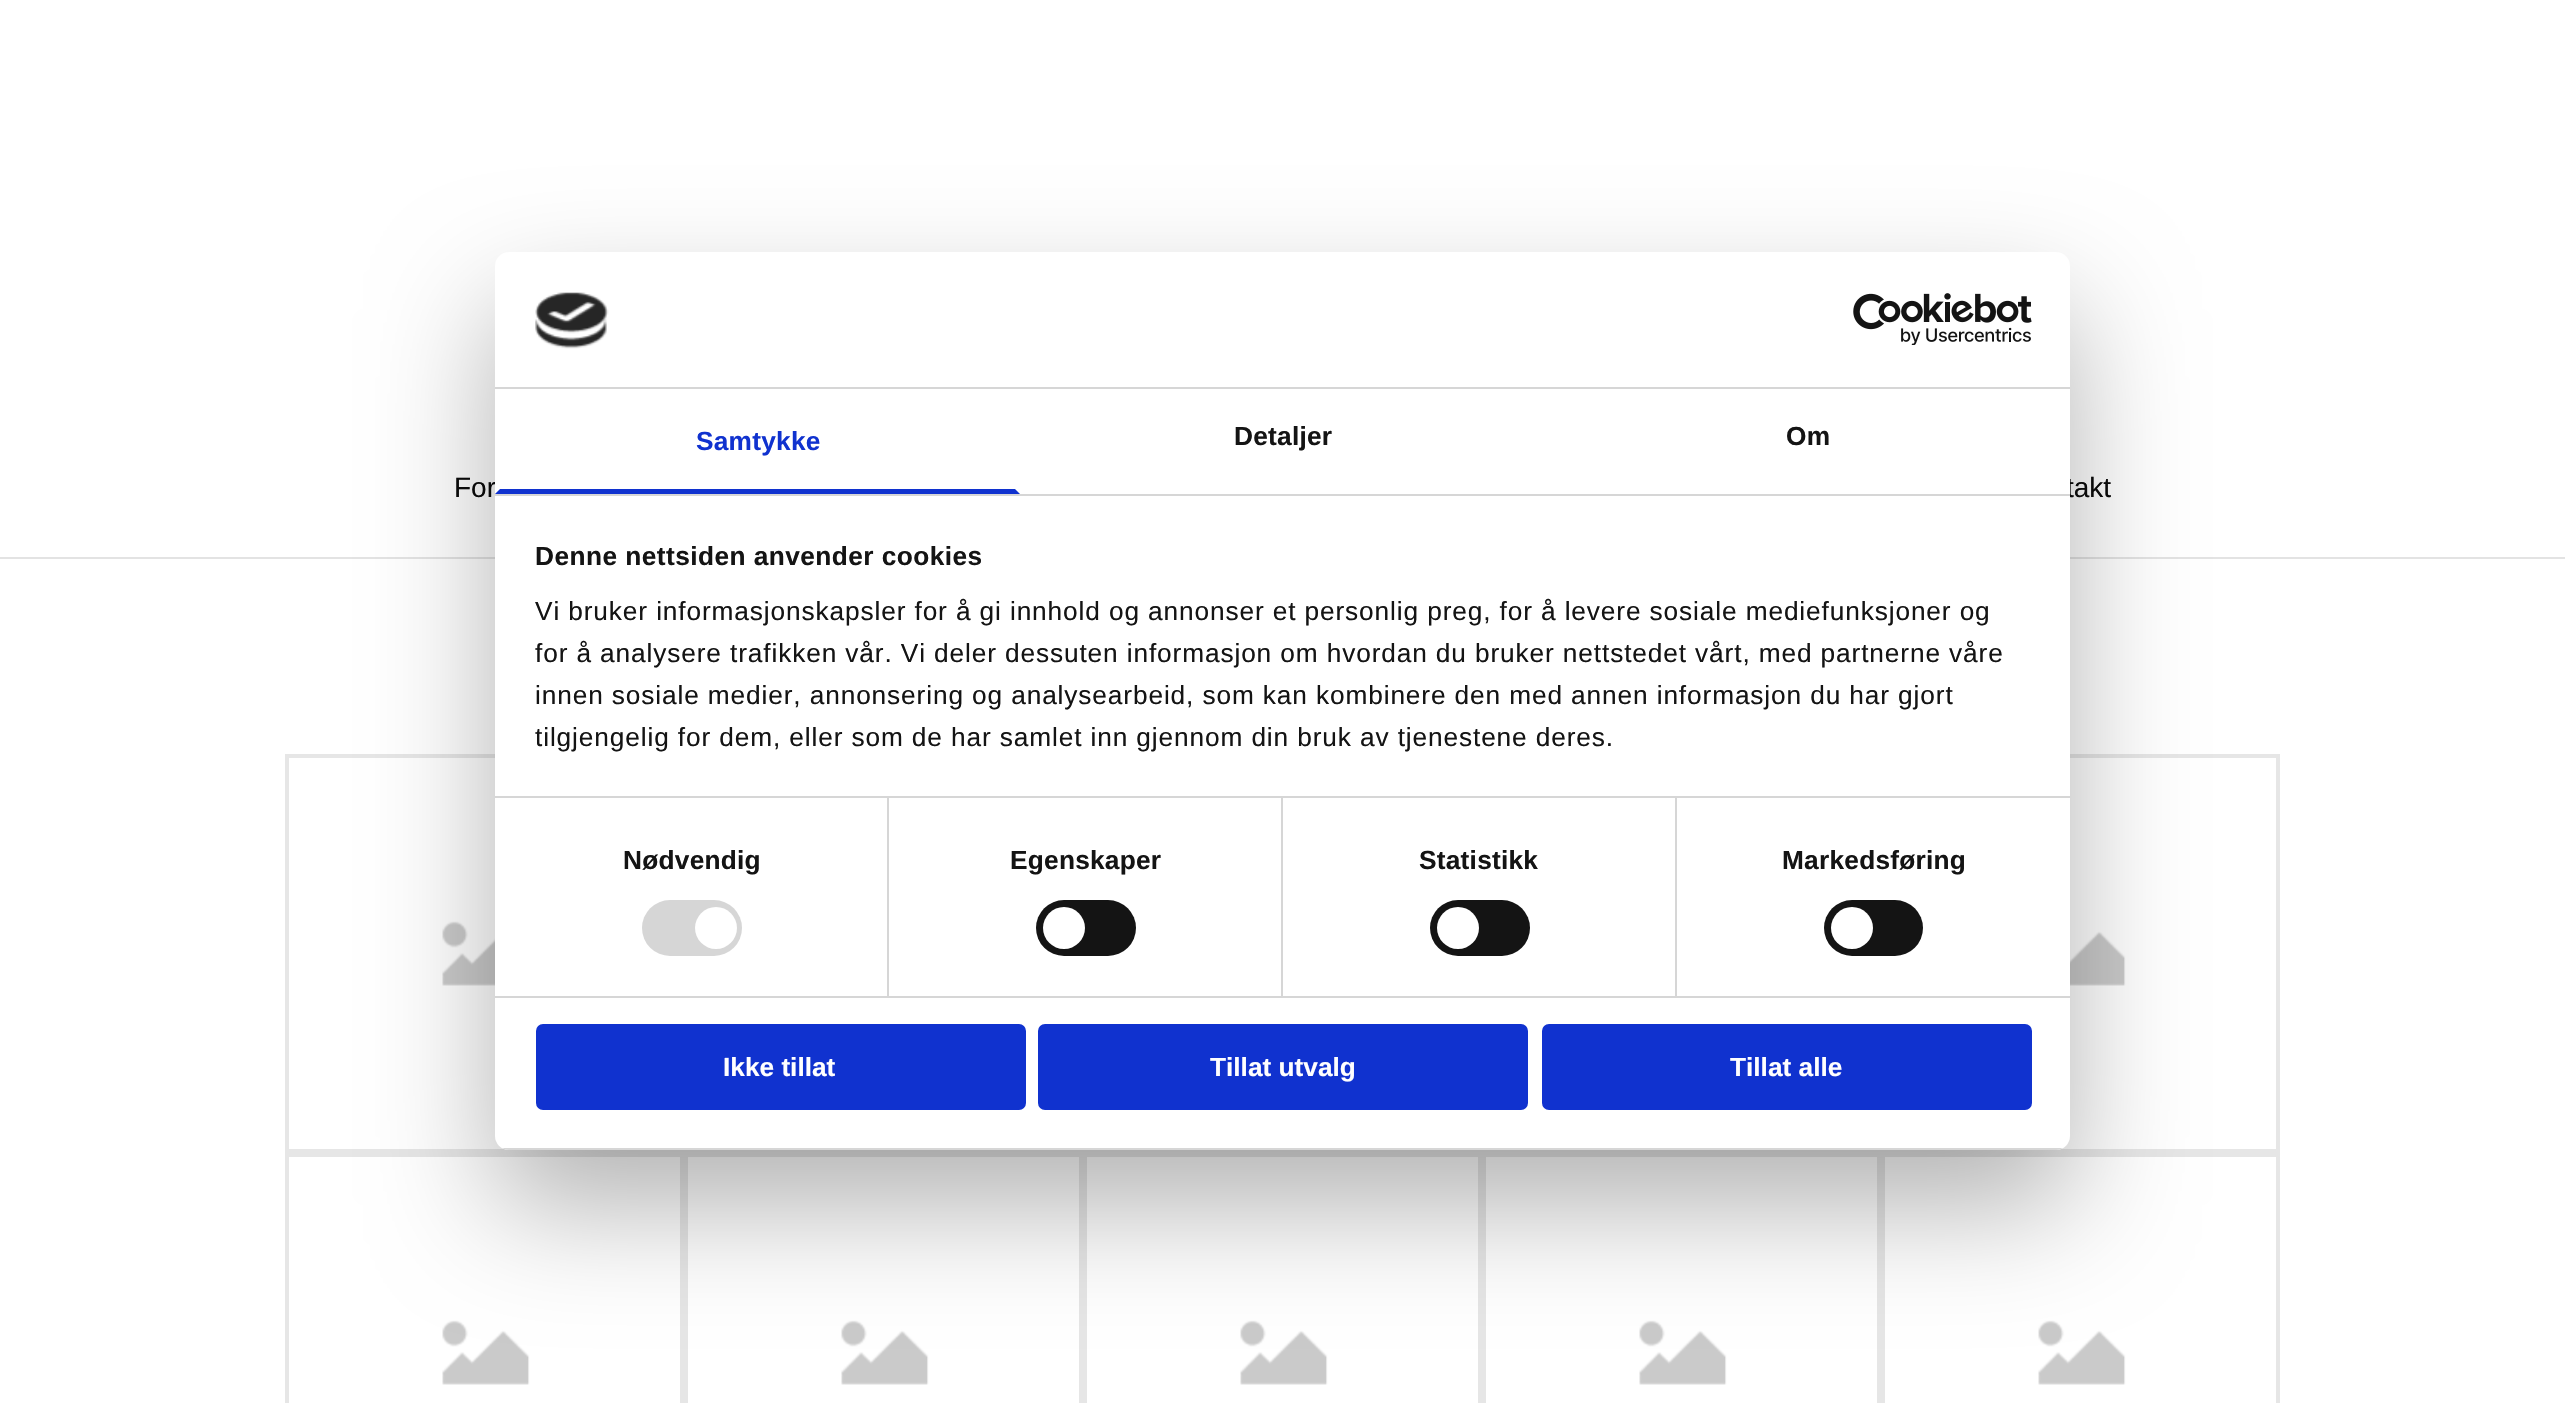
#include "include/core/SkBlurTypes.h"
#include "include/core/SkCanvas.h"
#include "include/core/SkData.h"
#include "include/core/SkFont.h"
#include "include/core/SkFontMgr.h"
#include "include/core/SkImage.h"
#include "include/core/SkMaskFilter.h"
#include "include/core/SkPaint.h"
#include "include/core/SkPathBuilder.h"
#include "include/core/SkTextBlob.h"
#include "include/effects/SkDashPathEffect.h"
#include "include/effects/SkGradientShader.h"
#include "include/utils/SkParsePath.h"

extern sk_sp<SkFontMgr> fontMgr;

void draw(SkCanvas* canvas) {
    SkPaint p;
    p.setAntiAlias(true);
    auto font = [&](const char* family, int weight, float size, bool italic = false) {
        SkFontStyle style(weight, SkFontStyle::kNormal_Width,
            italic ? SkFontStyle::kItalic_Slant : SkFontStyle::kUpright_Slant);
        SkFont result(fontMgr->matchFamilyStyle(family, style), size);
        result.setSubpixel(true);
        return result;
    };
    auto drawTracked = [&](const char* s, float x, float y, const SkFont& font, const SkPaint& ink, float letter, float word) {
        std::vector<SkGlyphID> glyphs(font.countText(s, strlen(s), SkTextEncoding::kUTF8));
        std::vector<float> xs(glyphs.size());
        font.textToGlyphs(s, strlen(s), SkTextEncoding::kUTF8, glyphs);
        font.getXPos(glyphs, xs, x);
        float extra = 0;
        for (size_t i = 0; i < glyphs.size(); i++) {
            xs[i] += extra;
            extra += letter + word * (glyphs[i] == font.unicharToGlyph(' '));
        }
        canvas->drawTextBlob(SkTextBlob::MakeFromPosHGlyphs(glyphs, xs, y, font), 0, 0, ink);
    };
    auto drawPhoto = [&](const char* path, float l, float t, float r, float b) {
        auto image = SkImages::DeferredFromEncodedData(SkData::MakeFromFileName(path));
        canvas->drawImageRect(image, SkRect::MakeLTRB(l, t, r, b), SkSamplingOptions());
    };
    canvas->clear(0xFFFFFFFF);
    p.setColor(0xFFE3E3E3);
    canvas->drawRect(SkRect::MakeLTRB(0, 557, 2565, 559), p);
    drawPhoto("media/3.png", 442, 921, 495, 986);
    p.setStyle(SkPaint::kStroke_Style);
    p.setStrokeWidth(4);
    p.setColor(0xFFE6E6E6);
    canvas->drawRect(SkRect::MakeLTRB(287, 756, 682, 1151), p);
    canvas->drawRect(SkRect::MakeLTRB(686, 756, 1081, 1151), p);
    canvas->drawRect(SkRect::MakeLTRB(1085, 756, 1480, 1151), p);
    canvas->drawRect(SkRect::MakeLTRB(1484, 756, 1879, 1151), p);
    drawPhoto("media/4.png", 2070, 931, 2126, 986);
    canvas->drawRect(SkRect::MakeLTRB(1883, 756, 2278, 1151), p);
    drawPhoto("media/5.png", 442, 1320, 530, 1385);
    canvas->drawRect(SkRect::MakeLTRB(287, 1155, 682, 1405), p);
    drawPhoto("media/5.png", 841, 1320, 929, 1385);
    canvas->drawRect(SkRect::MakeLTRB(686, 1155, 1081, 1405), p);
    drawPhoto("media/5.png", 1240, 1320, 1328, 1385);
    canvas->drawRect(SkRect::MakeLTRB(1085, 1155, 1480, 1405), p);
    drawPhoto("media/5.png", 1639, 1320, 1727, 1385);
    canvas->drawRect(SkRect::MakeLTRB(1484, 1155, 1879, 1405), p);
    drawPhoto("media/5.png", 2038, 1320, 2126, 1385);
    canvas->drawRect(SkRect::MakeLTRB(1883, 1155, 2278, 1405), p);
    p.setStyle(SkPaint::kFill_Style);
    p.setColor(0x4D000000);
    p.setMaskFilter(SkMaskFilter::MakeBlur(kNormal_SkBlurStyle, 59.5f));
    canvas->drawRoundRect(SkRect::MakeLTRB(495, 308, 2070, 1206), 14, 14, p);
    p.setMaskFilter(nullptr);
    auto font1 = font("Liberation Sans", 400, 28);
    p.setColor(0xFF0A0A0A);
    canvas->drawString("For", 454, 497, font1, p);
    canvas->drawString("takt", 2066, 497, font1, p);
    p.setColor(0xFFFFFFFF);
    canvas->drawRoundRect(SkRect::MakeLTRB(495, 252, 2070, 1150), 14, 14, p);
    p.setColor(0xFFD6D6D6);
    canvas->drawRect(SkRect::MakeLTRB(495, 387, 2070, 389), p);
    drawPhoto("media/1.png", 535, 292, 609, 349);
    drawPhoto("media/2.png", 1853, 293, 2032, 345);
    canvas->drawRect(SkRect::MakeLTRB(495, 494, 2070, 496), p);
    p.setColor(0xFF1032CF);
    canvas->drawPath(SkPathBuilder().moveTo(1020, 494).lineTo(495, 494).lineTo(500, 489).lineTo(1015, 489).close().detach(), p);
    auto font2 = font("Liberation Sans", 700, 26.25f);
    drawTracked("Samtykke", 696, 450, font2, p, 0.25f, 0);
    p.setColor(0xFF141414);
    drawTracked("Detaljer", 1234, 445, font2, p, 0.25f, 0);
    drawTracked("Om", 1786, 445, font2, p, 0.25f, 0);
    p.setColor(0xFFD6D6D6);
    canvas->drawRect(SkRect::MakeLTRB(495, 796, 2070, 798), p);
    p.setColor(0xFF141414);
    drawTracked("Denne nettsiden anvender cookies", 535, 565, font2, p, 0.45f, 0);
    auto font3 = font("Liberation Sans", 400, 26.25f);
    {
        const struct { const char* s; float x, y; } items[] = {
            {"Vi bruker informasjonskapsler for å gi innhold og annonser et personlig preg, for å levere sosiale mediefunksjoner og", 535, 620},
            {"for å analysere trafikken vår. Vi deler dessuten informasjon om hvordan du bruker nettstedet vårt, med partnerne våre", 535, 662},
            {"innen sosiale medier, annonsering og analysearbeid, som kan kombinere den med annen informasjon du har gjort", 535, 704},
            {"tilgjengelig for dem, eller som de har samlet inn gjennom din bruk av tjenestene deres.", 535, 746},
        };
        for (auto [s, x, y] : items) {
            drawTracked(s, x, y, font3, p, 0.88f, 0);
        }
    }
    p.setColor(0xFFD6D6D6);
    canvas->drawRect(SkRect::MakeLTRB(495, 996, 2070, 998), p);
    canvas->drawRect(SkRect::MakeLTRB(887, 798, 889, 996), p);
    p.setColor(0xFF141414);
    drawTracked("Nødvendig", 623, 869, font2, p, 0.25f, 0);
    p.setColor(0xFFD6D6D6);
    canvas->drawRoundRect(SkRect::MakeLTRB(642, 900, 742, 956), 28, 28, p);
    p.setColor(0xFFFFFFFF);
    canvas->drawCircle(716, 928, 21, p);
    p.setColor(0xFFD6D6D6);
    canvas->drawRect(SkRect::MakeLTRB(1281, 798, 1283, 996), p);
    p.setColor(0xFF141414);
    drawTracked("Egenskaper", 1010, 869, font2, p, 0.25f, 0);
    canvas->drawRoundRect(SkRect::MakeLTRB(1036, 900, 1136, 956), 28, 28, p);
    p.setColor(0xFFFFFFFF);
    canvas->drawCircle(1064, 928, 21, p);
    p.setColor(0xFFD6D6D6);
    canvas->drawRect(SkRect::MakeLTRB(1675, 798, 1677, 996), p);
    p.setColor(0xFF141414);
    drawTracked("Statistikk", 1419, 869, font2, p, 0.25f, 0);
    canvas->drawRoundRect(SkRect::MakeLTRB(1430, 900, 1530, 956), 28, 28, p);
    p.setColor(0xFFFFFFFF);
    canvas->drawCircle(1458, 928, 21, p);
    p.setColor(0xFF141414);
    drawTracked("Markedsføring", 1782, 869, font2, p, 0.25f, 0);
    canvas->drawRoundRect(SkRect::MakeLTRB(1824, 900, 1923, 956), 28, 28, p);
    p.setColor(0xFFFFFFFF);
    canvas->drawCircle(1852, 928, 21, p);
    canvas->save();
    canvas->clipPath(SkPathBuilder().moveTo(509, 252).lineTo(2056, 252).cubicTo(2063.5f, 252, 2070, 258.5f, 2070, 266).lineTo(2070, 1136).cubicTo(2070, 1143.5f, 2063.5f, 1150, 2056, 1150).lineTo(509, 1150).cubicTo(501.5f, 1150, 495, 1143.5f, 495, 1136).lineTo(495, 266).cubicTo(495, 258.5f, 501.5f, 252, 509, 252).close().detach(), true);
    p.setColor(0xFFD6D6D6);
    canvas->drawRect(SkRect::MakeLTRB(495, 1148, 2070, 1150), p);
    canvas->restore();
    p.setColor(0xFF1032CF);
    canvas->drawRoundRect(SkRect::MakeLTRB(538, 1026, 1024, 1108), 5, 5, p);
    p.setStyle(SkPaint::kStroke_Style);
    canvas->drawRoundRect(SkRect::MakeLTRB(538, 1026, 1024, 1108), 5, 5, p);
    p.setStyle(SkPaint::kFill_Style);
    p.setColor(0xFFFFFFFF);
    canvas->drawString("Ikke tillat", 723, 1076, font2, p);
    p.setColor(0xFF1032CF);
    canvas->drawRoundRect(SkRect::MakeLTRB(1040, 1026, 1526, 1108), 5, 5, p);
    p.setStyle(SkPaint::kStroke_Style);
    canvas->drawRoundRect(SkRect::MakeLTRB(1040, 1026, 1526, 1108), 5, 5, p);
    p.setStyle(SkPaint::kFill_Style);
    p.setColor(0xFFFFFFFF);
    canvas->drawString("Tillat utvalg", 1210, 1076, font2, p);
    p.setColor(0xFF1032CF);
    canvas->drawRoundRect(SkRect::MakeLTRB(1544, 1026, 2030, 1108), 5, 5, p);
    p.setStyle(SkPaint::kStroke_Style);
    canvas->drawRoundRect(SkRect::MakeLTRB(1544, 1026, 2030, 1108), 5, 5, p);
    p.setStyle(SkPaint::kFill_Style);
    p.setColor(0xFFFFFFFF);
    canvas->drawString("Tillat alle", 1730, 1076, font2, p);
}
